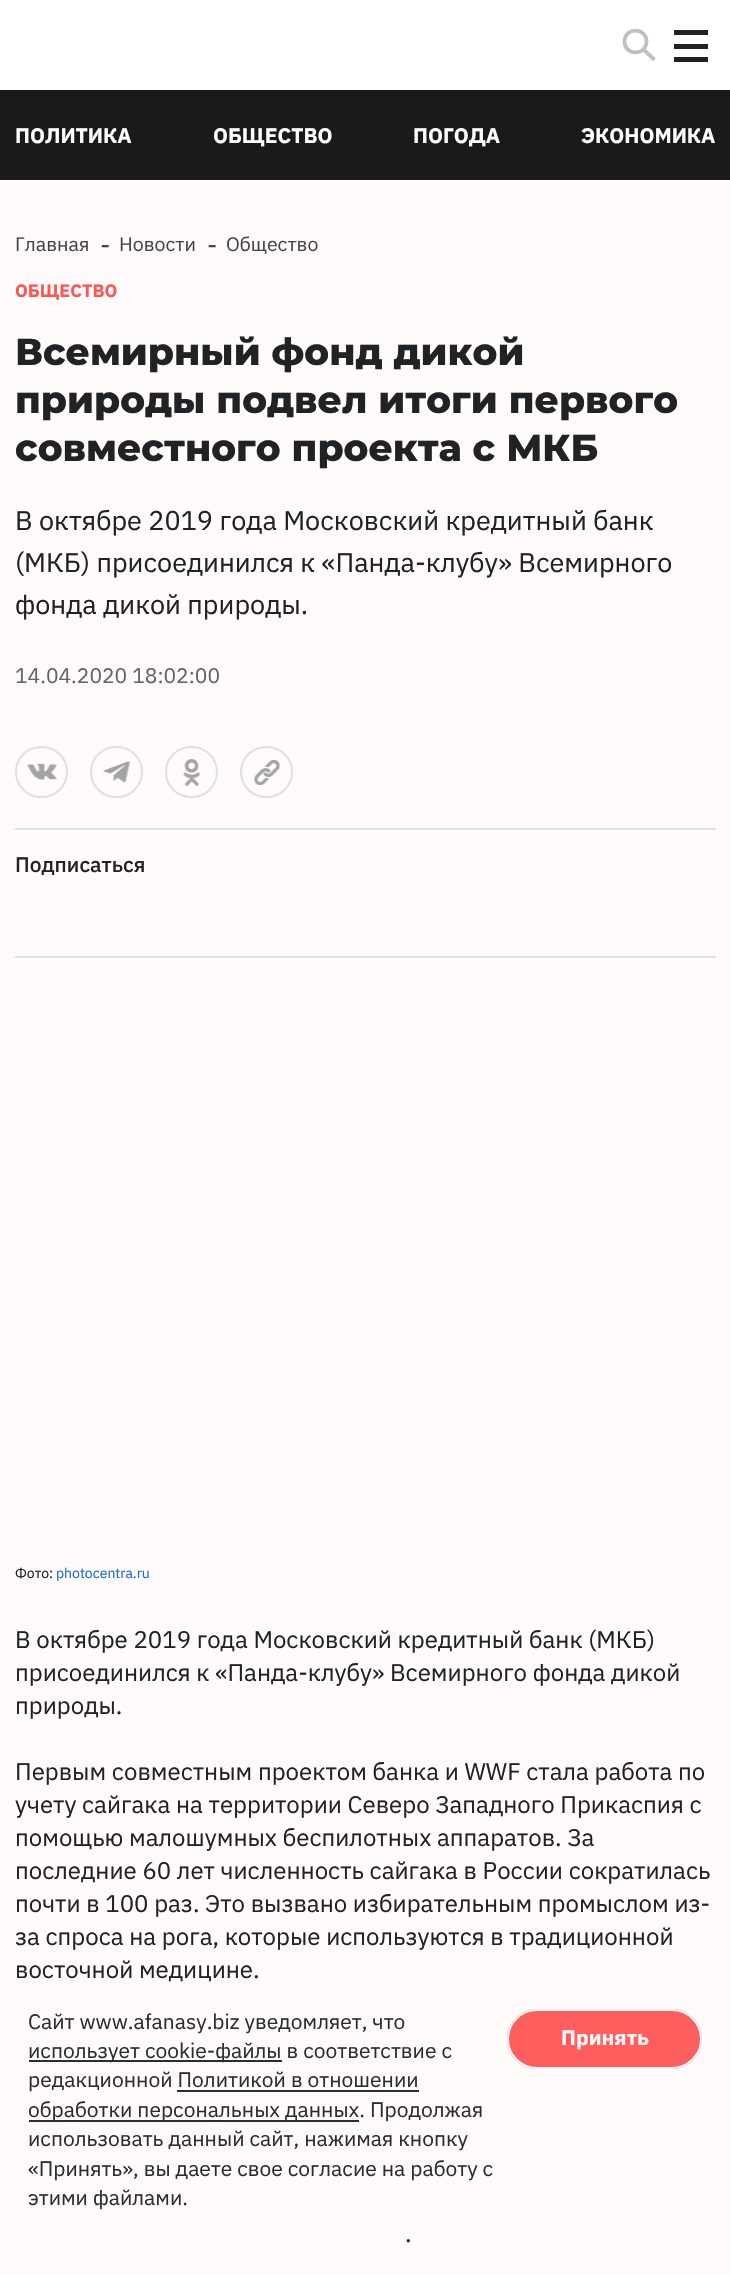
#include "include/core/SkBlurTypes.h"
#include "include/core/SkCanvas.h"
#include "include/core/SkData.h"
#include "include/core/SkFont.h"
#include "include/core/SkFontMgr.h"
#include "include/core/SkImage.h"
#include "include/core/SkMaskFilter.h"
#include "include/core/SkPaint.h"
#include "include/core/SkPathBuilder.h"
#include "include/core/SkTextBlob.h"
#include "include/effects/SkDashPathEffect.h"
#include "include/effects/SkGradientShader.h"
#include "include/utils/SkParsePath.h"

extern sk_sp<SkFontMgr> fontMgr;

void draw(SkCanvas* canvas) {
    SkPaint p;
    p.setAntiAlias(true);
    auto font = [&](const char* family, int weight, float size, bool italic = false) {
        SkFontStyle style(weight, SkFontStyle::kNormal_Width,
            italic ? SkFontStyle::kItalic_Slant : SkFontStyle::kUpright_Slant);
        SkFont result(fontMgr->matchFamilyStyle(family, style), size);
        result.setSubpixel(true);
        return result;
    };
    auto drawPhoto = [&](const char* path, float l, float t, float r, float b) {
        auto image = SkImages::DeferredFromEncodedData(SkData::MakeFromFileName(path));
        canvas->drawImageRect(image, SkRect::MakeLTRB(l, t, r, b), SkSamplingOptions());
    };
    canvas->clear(0xFFFFFBFB);
    p.setColor(0xFFFFFFFF);
    canvas->drawRect(SkRect::MakeLTRB(0, 0, 730, 90), p);
    p.setStyle(SkPaint::kStroke_Style);
    p.setStrokeWidth(3.8f);
    p.setStrokeCap(SkPaint::kSquare_Cap);
    p.setStrokeJoin(SkPaint::kBevel_Join);
    p.setColor(0xFFC1C0C0);
    canvas->drawPath(SkPathBuilder().moveTo(643.5f, 49.5f).lineTo(653, 58.5f).moveTo(646.5f, 41.5f).cubicTo(646.5f, 56, 624.5f, 56, 624.5f, 41.5f).cubicTo(624.5f, 27, 646.5f, 27, 646.5f, 41.5f).close().detach(), p);
    p.setStyle(SkPaint::kFill_Style);
    {
        const struct { float l, t, r, b; SkColor color; } items[] = {
            {674, 30, 708, 35, 0xFF212226},
            {674, 44, 708, 49, 0xFF212226},
            {674, 57, 708, 62, 0xFF212226},
            {0, 90, 730, 180, 0xFF1A1A1A},
        };
        for (auto [l, t, r, b, color] : items) {
            p.setColor(color);
            canvas->drawRect(SkRect::MakeLTRB(l, t, r, b), p);
        }
    }
    auto font1 = font("IBM Plex Sans", 700, 21);
    p.setColor(0xFFFFFFFF);
    {
        const struct { const char* s; float x, y; } items[] = {
            {"ПОЛИТИКА", 15, 143},
            {"ОБЩЕСТВО", 213, 143},
            {"ПОГОДА", 413, 143},
            {"ЭКОНОМИКА", 581, 143},
        };
        for (auto [s, x, y] : items) {
            canvas->drawString(s, x, y, font1, p);
        }
    }
    auto font2 = font("IBM Plex Sans", 400, 19.5f);
    p.setColor(0xFF464545);
    canvas->drawString("Главная", 15, 251, font2, p);
    auto font3 = font("IBM Plex Sans", 400, 26);
    canvas->drawString("-", 100, 254, font3, p);
    canvas->drawString("Новости", 119, 251, font2, p);
    canvas->drawString("-", 207, 254, font3, p);
    canvas->drawString("Общество", 226, 251, font2, p);
    auto font4 = font("IBM Plex Sans", 700, 18);
    p.setColor(0xFFFF5555);
    canvas->drawString("ОБЩЕСТВО", 15, 297, font4, p);
    auto font5 = font("Montserrat", 800, 37.5f);
    p.setColor(0xFF212226);
    {
        const struct { const char* s; float x, y; } items[] = {
            {"Всемирный фонд дикой", 15, 365},
            {"природы подвел итоги первого", 15, 413},
            {"совместного проекта с МКБ", 15, 461},
        };
        for (auto [s, x, y] : items) {
            canvas->drawString(s, x, y, font5, p);
        }
    }
    auto font6 = font("IBM Plex Sans", 400, 27);
    {
        const struct { const char* s; float x, y; } items[] = {
            {"В октябре 2019 года Московский кредитный банк", 15, 530},
            {"(МКБ) присоединился к «Панда-клубу» Всемирного", 15, 572},
            {"фонда дикой природы.", 15, 614},
        };
        for (auto [s, x, y] : items) {
            canvas->drawString(s, x, y, font6, p);
        }
    }
    auto font7 = font("IBM Plex Sans", 400, 21);
    p.setColor(0xFF646366);
    canvas->drawString("14.04.2020 18:02:00", 15, 683, font7, p);
    p.setStyle(SkPaint::kStroke_Style);
    p.setStrokeWidth(2);
    p.setStrokeCap(SkPaint::kButt_Cap);
    p.setStrokeJoin(SkPaint::kMiter_Join);
    p.setColor(0xFFE0E0E0);
    canvas->drawRoundRect(SkRect::MakeLTRB(16, 747, 67, 797), 25, 25, p);
    drawPhoto("media/1.png", 27, 764, 57, 780);
    canvas->drawRoundRect(SkRect::MakeLTRB(91, 747, 142, 797), 25, 25, p);
    drawPhoto("media/2.png", 103, 761, 131, 783);
    canvas->drawRoundRect(SkRect::MakeLTRB(166, 747, 217, 797), 25, 25, p);
    drawPhoto("media/3.png", 183, 759, 201, 786);
    canvas->drawRoundRect(SkRect::MakeLTRB(241, 747, 292, 797), 25, 25, p);
    drawPhoto("media/4.png", 254, 760, 280, 785);
    p.setStyle(SkPaint::kFill_Style);
    canvas->drawRect(SkRect::MakeLTRB(15, 828, 716, 830), p);
    canvas->drawRect(SkRect::MakeLTRB(15, 956, 716, 958), p);
    auto font8 = font("IBM Plex Sans", 500, 21);
    p.setColor(0xFF212226);
    canvas->drawString("Подписаться", 15, 872, font8, p);
    auto font9 = font("IBM Plex Sans", 400, 14);
    canvas->drawString("Фото:", 15, 1578, font9, p);
    p.setColor(0xFF176AE0);
    canvas->drawString("photocentra.ru", 56, 1578, font9, p);
    auto font10 = font("IBM Plex Sans", 400, 24);
    p.setColor(0xFF212226);
    {
        const struct { const char* s; float x, y; } items[] = {
            {"В октябре 2019 года Московский кредитный банк (МКБ)", 15, 1648},
            {"присоединился к «Панда-клубу» Всемирного фонда дикой", 15, 1681},
            {"природы.", 15, 1714},
            {"Первым совместным проектом банка и WWF стала работа по", 15, 1780},
            {"учету сайгака на территории Северо Западного Прикаспия с", 15, 1813},
            {"помощью малошумных беспилотных аппаратов. За", 15, 1846},
            {"последние 60 лет численность сайгака в России сократилась", 15, 1879},
            {"почти в 100 раз. Это вызвано избирательным промыслом из-", 15, 1912},
            {"за спроса на рога, которые используются в традиционной", 15, 1945},
            {"восточной медицине.", 15, 1978},
            {".", 405, 2242},
        };
        for (auto [s, x, y] : items) {
            canvas->drawString(s, x, y, font10, p);
        }
    }
    p.setColor(0xFF2C2D31);
    canvas->drawString("Сайт www.afanasy.biz уведомляет, что", 28, 2029, font7, p);
    p.setColor(0xF2212226);
    canvas->drawRect(SkRect::MakeLTRB(29, 2060, 282, 2062), p);
    p.setColor(0xFF2C2D31);
    canvas->drawString("использует cookie-файлы в соответствие с", 28, 2058, font7, p);
    canvas->drawString("редакционной Политикой в отношении", 28, 2087, font7, p);
    canvas->drawRect(SkRect::MakeLTRB(29, 2120, 359, 2122), p);
    canvas->drawString("обработки персональных данных. Продолжая", 28, 2117, font7, p);
    canvas->drawRect(SkRect::MakeLTRB(177, 2090, 419, 2092), p);
    {
        const struct { const char* s; float x, y; } items[] = {
            {"использовать данный сайт, нажимая кнопку", 28, 2146},
            {"«Принять», вы даете свое согласие на работу с", 28, 2176},
            {"этими файлами.", 28, 2205},
        };
        for (auto [s, x, y] : items) {
            canvas->drawString(s, x, y, font7, p);
        }
    }
    p.setColor(0xF2FF5555);
    canvas->drawRoundRect(SkRect::MakeLTRB(507, 2009, 702, 2069), 30, 30, p);
    p.setStyle(SkPaint::kStroke_Style);
    p.setColor(0xF2FFFFFF);
    canvas->drawRoundRect(SkRect::MakeLTRB(508, 2010, 701, 2068), 29, 29, p);
    p.setStyle(SkPaint::kFill_Style);
    p.setColor(0xFFFFF7F7);
    canvas->drawString("Принять", 561, 2045, font1, p);
}
